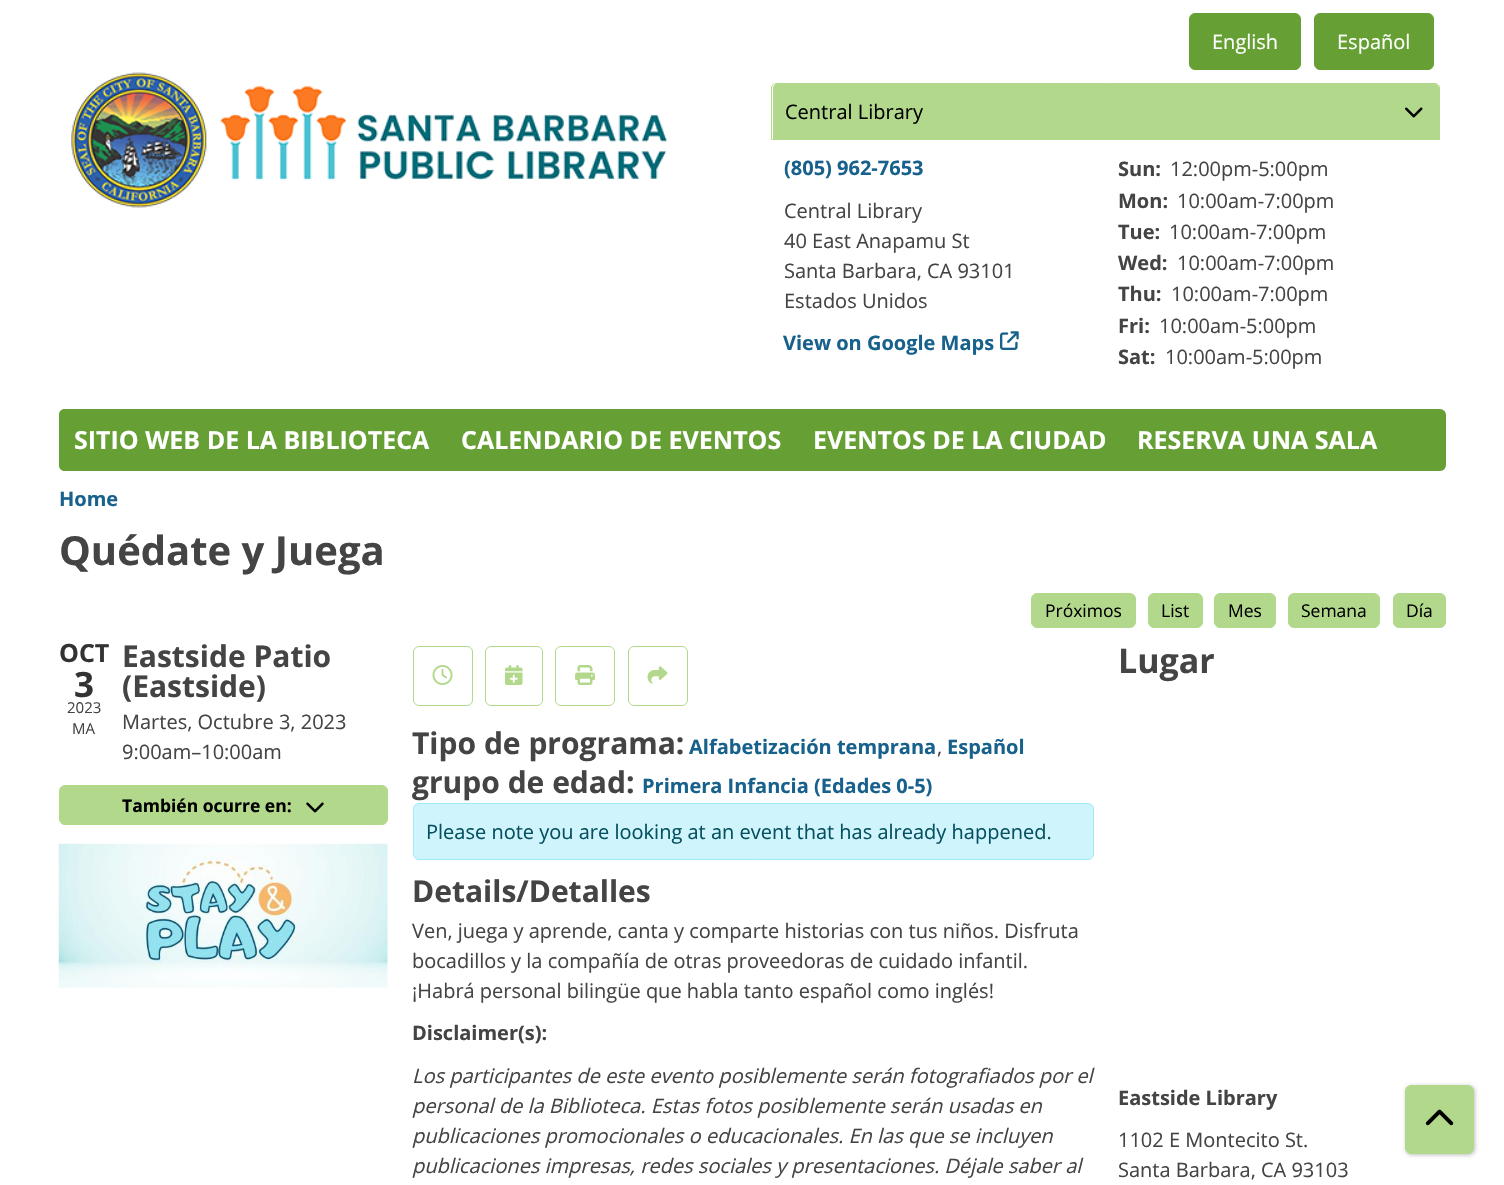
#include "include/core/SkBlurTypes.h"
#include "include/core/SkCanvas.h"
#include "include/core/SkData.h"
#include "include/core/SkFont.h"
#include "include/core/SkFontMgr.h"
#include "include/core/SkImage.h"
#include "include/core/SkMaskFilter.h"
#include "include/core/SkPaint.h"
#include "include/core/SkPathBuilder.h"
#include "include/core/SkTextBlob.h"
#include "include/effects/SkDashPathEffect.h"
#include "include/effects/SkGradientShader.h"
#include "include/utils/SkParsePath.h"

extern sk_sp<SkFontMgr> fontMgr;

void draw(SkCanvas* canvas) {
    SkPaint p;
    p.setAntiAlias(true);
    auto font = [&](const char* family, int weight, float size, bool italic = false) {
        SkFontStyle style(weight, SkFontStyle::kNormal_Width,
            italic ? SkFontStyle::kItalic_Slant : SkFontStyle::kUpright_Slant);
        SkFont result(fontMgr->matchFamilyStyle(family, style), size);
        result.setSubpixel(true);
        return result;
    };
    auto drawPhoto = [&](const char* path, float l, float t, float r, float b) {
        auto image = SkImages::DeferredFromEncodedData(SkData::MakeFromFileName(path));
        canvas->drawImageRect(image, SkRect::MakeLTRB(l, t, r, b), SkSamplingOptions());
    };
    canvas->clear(0xFFFFFFFF);
    drawPhoto("media/1.png", 71, 72, 668, 208);
    p.setColor(0xFF66A035);
    canvas->drawRoundRect(SkRect::MakeLTRB(1189.5f, 13.5f, 1300.5f, 69.5f), 5.5f, 5.5f, p);
    p.setStyle(SkPaint::kStroke_Style);
    p.setStrokeWidth(1);
    canvas->drawRoundRect(SkRect::MakeLTRB(1189.5f, 13.5f, 1300.5f, 69.5f), 5.5f, 5.5f, p);
    auto font1 = font("Open Sans", 400, 20);
    p.setStyle(SkPaint::kFill_Style);
    p.setColor(0xFFFFFFFF);
    canvas->drawString("English", 1212, 49, font1, p);
    p.setColor(0xFF66A035);
    canvas->drawRoundRect(SkRect::MakeLTRB(1314.5f, 13.5f, 1433.5f, 69.5f), 5.5f, 5.5f, p);
    p.setStyle(SkPaint::kStroke_Style);
    canvas->drawRoundRect(SkRect::MakeLTRB(1314.5f, 13.5f, 1433.5f, 69.5f), 5.5f, 5.5f, p);
    p.setStyle(SkPaint::kFill_Style);
    p.setColor(0xFFFFFFFF);
    canvas->drawString("Español", 1337, 49, font1, p);
    p.setColor(0xFFB2D88C);
    canvas->drawPath(SkPathBuilder().moveTo(777, 84).lineTo(1435, 84).cubicTo(1437, 84, 1439, 86, 1439, 88).lineTo(1439, 139).lineTo(773, 139).lineTo(773, 88).cubicTo(773, 86, 775, 84, 777, 84).close().detach(), p);
    drawPhoto("media/2.png", 1405, 107, 1423, 118);
    p.setStyle(SkPaint::kStroke_Style);
    canvas->drawPath(SkPathBuilder().moveTo(776, 83.5f).lineTo(1435, 83.5f).cubicTo(1437.5f, 83.5f, 1439.5f, 85.5f, 1439.5f, 88).lineTo(1439.5f, 139.5f).lineTo(771.5f, 139.5f).lineTo(771.5f, 88).cubicTo(771.5f, 85.5f, 773.5f, 83.5f, 776, 83.5f).close().detach(), p);
    p.setStyle(SkPaint::kFill_Style);
    p.setColor(0xFF000000);
    canvas->drawString("Central Library", 785, 119, font1, p);
    auto font2 = font("Open Sans", 700, 20);
    p.setColor(0xFF17618C);
    canvas->drawString("(805) 962-7653", 784, 175, font2, p);
    p.setColor(0xFF444444);
    {
        const struct { const char* s; float x, y; } items[] = {
            {"Central Library", 784, 218},
            {"40 East Anapamu St", 784, 248},
            {"Santa Barbara, CA 93101", 784, 278},
            {"Estados Unidos", 784, 308},
        };
        for (auto [s, x, y] : items) {
            canvas->drawString(s, x, y, font1, p);
        }
    }
    p.setColor(0xFF17618C);
    canvas->drawString("View on Google Maps", 783, 350, font2, p);
    drawPhoto("media/3.png", 1000, 331, 1019, 350);
    p.setColor(0xFF444444);
    canvas->drawString("Sun:", 1118, 176, font2, p);
    canvas->drawString("12:00pm-5:00pm", 1170, 176, font1, p);
    canvas->drawString("Mon:", 1118, 208, font2, p);
    canvas->drawString("10:00am-7:00pm", 1177, 208, font1, p);
    canvas->drawString("Tue:", 1118, 239, font2, p);
    canvas->drawString("10:00am-7:00pm", 1169, 239, font1, p);
    canvas->drawString("Wed:", 1118, 270, font2, p);
    canvas->drawString("10:00am-7:00pm", 1177, 270, font1, p);
    canvas->drawString("Thu:", 1118, 301, font2, p);
    canvas->drawString("10:00am-7:00pm", 1171, 301, font1, p);
    canvas->drawString("Fri:", 1118, 333, font2, p);
    canvas->drawString("10:00am-5:00pm", 1159, 333, font1, p);
    canvas->drawString("Sat:", 1118, 364, font2, p);
    canvas->drawString("10:00am-5:00pm", 1165, 364, font1, p);
    p.setColor(0xFF66A035);
    canvas->drawRoundRect(SkRect::MakeLTRB(59, 409, 1446, 471), 6, 6, p);
    canvas->drawPath(SkPathBuilder().moveTo(65, 409).lineTo(445, 409).lineTo(445, 471).lineTo(65, 471).cubicTo(61.5f, 471, 59, 468.5f, 59, 465).lineTo(59, 415).cubicTo(59, 411.5f, 61.5f, 409, 65, 409).close().detach(), p);
    auto font3 = font("Open Sans", 700, 25);
    p.setColor(0xFFFFFFFF);
    {
        const struct { const char* s; float x, y; } items[] = {
            {"SITIO WEB DE LA BIBLIOTECA", 74, 449},
            {"CALENDARIO DE EVENTOS", 461, 449},
            {"EVENTOS DE LA CIUDAD", 813, 449},
            {"RESERVA UNA SALA", 1137, 449},
        };
        for (auto [s, x, y] : items) {
            canvas->drawString(s, x, y, font3, p);
        }
    }
    p.setColor(0xFF17618C);
    canvas->drawString("Home", 59, 506, font2, p);
    auto font4 = font("Open Sans", 700, 40);
    p.setColor(0xFF444444);
    canvas->drawString("Quédate y Juega", 59, 565, font4, p);
    p.setColor(0xFFB2D88C);
    canvas->drawRoundRect(SkRect::MakeLTRB(1031.5f, 593.5f, 1135.5f, 627.5f), 5.5f, 5.5f, p);
    p.setStyle(SkPaint::kStroke_Style);
    canvas->drawRoundRect(SkRect::MakeLTRB(1031.5f, 593.5f, 1135.5f, 627.5f), 5.5f, 5.5f, p);
    auto font5 = font("Open Sans", 400, 17.5f);
    p.setStyle(SkPaint::kFill_Style);
    p.setColor(0xFF000000);
    canvas->drawString("Próximos", 1045, 617, font5, p);
    p.setColor(0xFFB2D88C);
    canvas->drawRoundRect(SkRect::MakeLTRB(1148.5f, 593.5f, 1202.5f, 627.5f), 5.5f, 5.5f, p);
    p.setStyle(SkPaint::kStroke_Style);
    canvas->drawRoundRect(SkRect::MakeLTRB(1148.5f, 593.5f, 1202.5f, 627.5f), 5.5f, 5.5f, p);
    p.setStyle(SkPaint::kFill_Style);
    p.setColor(0xFF000000);
    canvas->drawString("List", 1161, 617, font5, p);
    p.setColor(0xFFB2D88C);
    canvas->drawRoundRect(SkRect::MakeLTRB(1214.5f, 593.5f, 1275.5f, 627.5f), 5.5f, 5.5f, p);
    p.setStyle(SkPaint::kStroke_Style);
    canvas->drawRoundRect(SkRect::MakeLTRB(1214.5f, 593.5f, 1275.5f, 627.5f), 5.5f, 5.5f, p);
    p.setStyle(SkPaint::kFill_Style);
    p.setColor(0xFF000000);
    canvas->drawString("Mes", 1228, 617, font5, p);
    p.setColor(0xFFB2D88C);
    canvas->drawRoundRect(SkRect::MakeLTRB(1288.5f, 593.5f, 1379.5f, 627.5f), 5.5f, 5.5f, p);
    p.setStyle(SkPaint::kStroke_Style);
    canvas->drawRoundRect(SkRect::MakeLTRB(1288.5f, 593.5f, 1379.5f, 627.5f), 5.5f, 5.5f, p);
    p.setStyle(SkPaint::kFill_Style);
    p.setColor(0xFF000000);
    canvas->drawString("Semana", 1301, 617, font5, p);
    p.setColor(0xFFB2D88C);
    canvas->drawRoundRect(SkRect::MakeLTRB(1393.5f, 593.5f, 1445.5f, 627.5f), 5.5f, 5.5f, p);
    p.setStyle(SkPaint::kStroke_Style);
    canvas->drawRoundRect(SkRect::MakeLTRB(1393.5f, 593.5f, 1445.5f, 627.5f), 5.5f, 5.5f, p);
    p.setStyle(SkPaint::kFill_Style);
    p.setColor(0xFF000000);
    canvas->drawString("Día", 1406, 617, font5, p);
    p.setColor(0xFF333333);
    canvas->drawString("OCT", 59, 662, font3, p);
    auto font6 = font("Open Sans", 700, 35);
    canvas->drawString("3", 74, 697, font6, p);
    auto font7 = font("Open Sans", 400, 15);
    p.setColor(0xFF444444);
    canvas->drawString("2023", 67, 713, font7, p);
    canvas->drawString("MA", 72, 734, font7, p);
    auto font8 = font("Open Sans", 700, 30);
    canvas->drawString("Eastside Patio", 122, 667, font8, p);
    canvas->drawString("(Eastside)", 122, 697, font8, p);
    canvas->drawString("Martes, Octubre 3, 2023", 122, 729, font1, p);
    canvas->drawString("9:00am–10:00am", 122, 759, font1, p);
    p.setColor(0xFFB2D88C);
    canvas->drawRoundRect(SkRect::MakeLTRB(59.5f, 785.5f, 387.5f, 824.5f), 5.5f, 5.5f, p);
    p.setStyle(SkPaint::kStroke_Style);
    canvas->drawRoundRect(SkRect::MakeLTRB(59.5f, 785.5f, 387.5f, 824.5f), 5.5f, 5.5f, p);
    auto font9 = font("Open Sans", 700, 17.5f);
    p.setStyle(SkPaint::kFill_Style);
    p.setColor(0xFF000000);
    canvas->drawString("También ocurre en:", 122, 812, font9, p);
    drawPhoto("media/4.png", 306, 802, 324, 813);
    drawPhoto("media/5.png", 58, 843, 388, 988);
    p.setStyle(SkPaint::kStroke_Style);
    p.setColor(0xFFB2D88C);
    canvas->drawRoundRect(SkRect::MakeLTRB(413.5f, 646.5f, 472.5f, 705.5f), 5.5f, 5.5f, p);
    drawPhoto("media/6.png", 432, 665, 453, 685);
    canvas->drawRoundRect(SkRect::MakeLTRB(485.5f, 646.5f, 542.5f, 705.5f), 5.5f, 5.5f, p);
    drawPhoto("media/7.png", 505, 665, 523, 685);
    canvas->drawRoundRect(SkRect::MakeLTRB(555.5f, 646.5f, 614.5f, 705.5f), 5.5f, 5.5f, p);
    drawPhoto("media/8.png", 575, 665, 595, 685);
    canvas->drawRoundRect(SkRect::MakeLTRB(628.5f, 646.5f, 687.5f, 705.5f), 5.5f, 5.5f, p);
    drawPhoto("media/9.png", 647, 666, 668, 684);
    p.setStyle(SkPaint::kFill_Style);
    p.setColor(0xFF444444);
    canvas->drawString("Tipo de programa:", 412, 754, font8, p);
    p.setColor(0xFF17618C);
    canvas->drawString("Alfabetización temprana", 689, 754, font2, p);
    p.setColor(0xFF444444);
    canvas->drawString(",", 937, 754, font1, p);
    p.setColor(0xFF17618C);
    canvas->drawString("Español", 947, 754, font2, p);
    p.setColor(0xFF444444);
    canvas->drawString("grupo de edad:", 412, 793, font8, p);
    p.setColor(0xFF17618C);
    canvas->drawString("Primera Infancia (Edades 0-5)", 642, 793, font2, p);
    p.setColor(0xFFCFF4FC);
    canvas->drawRoundRect(SkRect::MakeLTRB(413.5f, 803.5f, 1093.5f, 859.5f), 5.5f, 5.5f, p);
    p.setStyle(SkPaint::kStroke_Style);
    p.setColor(0xFF9EEAF9);
    canvas->drawRoundRect(SkRect::MakeLTRB(413.5f, 803.5f, 1093.5f, 859.5f), 5.5f, 5.5f, p);
    p.setStyle(SkPaint::kFill_Style);
    p.setColor(0xFF055160);
    canvas->drawString("Please note you are looking at an event that has already happened.", 426, 839, font1, p);
    p.setColor(0xFF444444);
    canvas->drawString("Details/Detalles", 412, 902, font8, p);
    {
        const struct { const char* s; float x, y; } items[] = {
            {"Ven, juega y aprende, canta y comparte historias con tus niños. Disfruta", 412, 938},
            {"bocadillos y la compañía de otras proveedoras de cuidado infantil.", 412, 968},
            {"¡Habrá personal bilingüe que habla tanto español como inglés!", 412, 998},
        };
        for (auto [s, x, y] : items) {
            canvas->drawString(s, x, y, font1, p);
        }
    }
    canvas->drawString("Disclaimer(s):", 412, 1040, font2, p);
    auto font10 = font("Open Sans", 400, 20, true);
    {
        const struct { const char* s; float x, y; } items[] = {
            {"Los participantes de este evento posiblemente serán fotografiados por el", 412, 1083},
            {"personal de la Biblioteca. Estas fotos posiblemente serán usadas en", 412, 1113},
            {"publicaciones promocionales o educacionales. En las que se incluyen", 412, 1143},
            {"publicaciones impresas, redes sociales y presentaciones. Déjale saber al", 412, 1173},
        };
        for (auto [s, x, y] : items) {
            canvas->drawString(s, x, y, font10, p);
        }
    }
    auto font11 = font("Open Sans", 700, 34);
    canvas->drawString("Lugar", 1118, 673, font11, p);
    canvas->drawString("Eastside Library", 1118, 1105, font2, p);
    canvas->drawString("1102 E Montecito St.", 1118, 1147, font1, p);
    canvas->drawString("Santa Barbara, CA 93103", 1118, 1177, font1, p);
    p.setColor(0x40000000);
    p.setMaskFilter(SkMaskFilter::MakeBlur(kNormal_SkBlurStyle, 2));
    canvas->drawRoundRect(SkRect::MakeLTRB(1406, 1086, 1475, 1155), 6, 6, p);
    p.setMaskFilter(nullptr);
    p.setColor(0xFFB2D88C);
    canvas->drawRoundRect(SkRect::MakeLTRB(1405.5f, 1085.5f, 1473.5f, 1153.5f), 5.5f, 5.5f, p);
    p.setStyle(SkPaint::kStroke_Style);
    canvas->drawRoundRect(SkRect::MakeLTRB(1405.5f, 1085.5f, 1473.5f, 1153.5f), 5.5f, 5.5f, p);
    drawPhoto("media/10.png", 1425, 1109, 1454, 1126);
}
